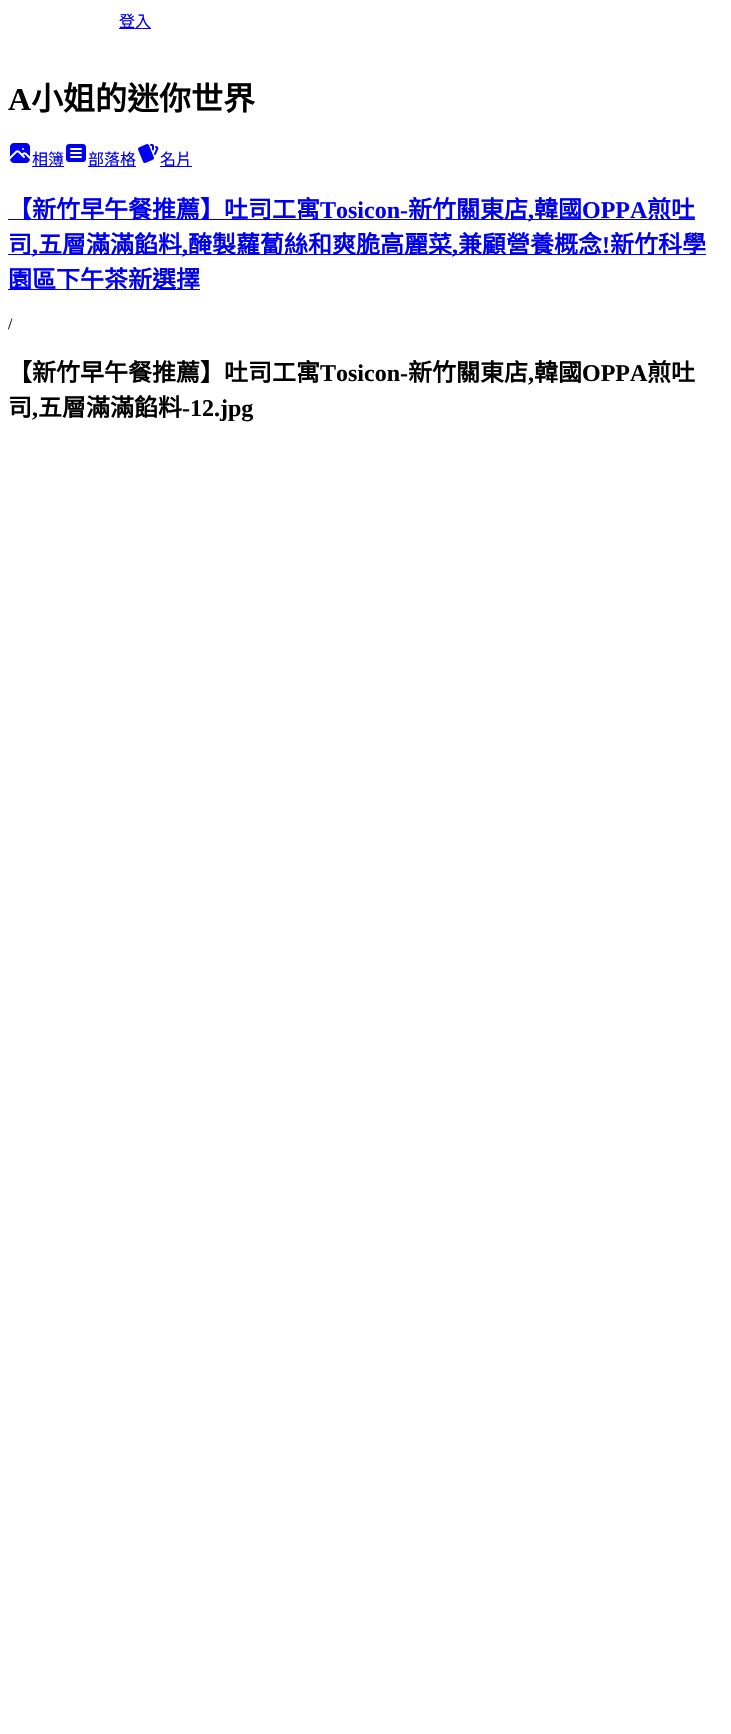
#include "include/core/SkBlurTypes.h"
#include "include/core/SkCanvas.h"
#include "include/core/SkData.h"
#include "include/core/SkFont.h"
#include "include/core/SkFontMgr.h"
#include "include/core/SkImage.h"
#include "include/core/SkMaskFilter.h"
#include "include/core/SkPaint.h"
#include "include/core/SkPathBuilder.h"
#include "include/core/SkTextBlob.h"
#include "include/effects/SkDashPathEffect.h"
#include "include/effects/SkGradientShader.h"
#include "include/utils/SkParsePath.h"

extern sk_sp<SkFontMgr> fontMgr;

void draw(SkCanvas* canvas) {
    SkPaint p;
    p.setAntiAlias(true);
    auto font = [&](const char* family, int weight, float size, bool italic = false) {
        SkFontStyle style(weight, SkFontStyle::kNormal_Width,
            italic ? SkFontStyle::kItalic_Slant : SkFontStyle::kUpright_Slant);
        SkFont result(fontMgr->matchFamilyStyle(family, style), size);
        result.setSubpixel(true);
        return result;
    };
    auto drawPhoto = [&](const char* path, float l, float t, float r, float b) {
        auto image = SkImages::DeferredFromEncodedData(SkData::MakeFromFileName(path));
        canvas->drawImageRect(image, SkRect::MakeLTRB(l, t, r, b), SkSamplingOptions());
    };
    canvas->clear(0xFFFFFFFF);
    p.setColor(0xFF0000EE);
    canvas->drawRect(SkRect::MakeLTRB(119, 28, 151, 29), p);
    auto font1 = font("Noto Sans CJK TC", 400, 16);
    canvas->drawString("登入", 119, 27, font1, p);
    auto font2 = font("Liberation Serif", 700, 32);
    p.setColor(0xFF000000);
    canvas->drawString("A", 8, 110, font2, p);
    auto font3 = font("Noto Sans CJK TC", 700, 32);
    canvas->drawString("小姐的迷你世界", 31, 110, font3, p);
    drawPhoto("media/1.png", 10, 143, 30, 163);
    p.setColor(0xFF0000EE);
    canvas->drawRect(SkRect::MakeLTRB(32, 166, 64, 167), p);
    canvas->drawString("相簿", 32, 165, font1, p);
    drawPhoto("media/2.png", 66, 144, 86, 162);
    canvas->drawRect(SkRect::MakeLTRB(88, 166, 136, 167), p);
    canvas->drawString("部落格", 88, 165, font1, p);
    drawPhoto("media/3.png", 138, 144, 159, 163);
    canvas->drawRect(SkRect::MakeLTRB(160, 166, 192, 167), p);
    canvas->drawString("名片", 160, 165, font1, p);
    canvas->drawRect(SkRect::MakeLTRB(8, 219, 695, 220), p);
    auto font4 = font("Noto Sans CJK TC", 700, 24);
    canvas->drawString("【新竹早午餐推薦】吐司工寓", 8, 218, font4, p);
    auto font5 = font("Liberation Serif", 700, 24);
    canvas->drawString("Tosicon-", 320, 218, font5, p);
    canvas->drawString("新竹關東店", 408, 218, font4, p);
    canvas->drawString(",", 528, 218, font5, p);
    canvas->drawString("韓國", 534, 218, font4, p);
    canvas->drawString("OPPA", 582, 218, font5, p);
    canvas->drawString("煎吐", 647, 218, font4, p);
    canvas->drawRect(SkRect::MakeLTRB(8, 254, 706, 255), p);
    canvas->drawString("司", 8, 253, font4, p);
    canvas->drawString(",", 32, 253, font5, p);
    canvas->drawString("五層滿滿餡料", 38, 253, font4, p);
    canvas->drawString(",", 182, 253, font5, p);
    canvas->drawString("醃製蘿蔔絲和爽脆高麗菜", 188, 253, font4, p);
    canvas->drawString(",", 452, 253, font5, p);
    canvas->drawString("兼顧營養概念", 458, 253, font4, p);
    canvas->drawString("!", 602, 253, font5, p);
    canvas->drawString("新竹科學", 610, 253, font4, p);
    canvas->drawRect(SkRect::MakeLTRB(8, 289, 200, 290), p);
    canvas->drawString("園區下午茶新選擇", 8, 288, font4, p);
    auto font6 = font("Liberation Serif", 400, 16);
    p.setColor(0xFF000000);
    canvas->drawString("/", 8, 329, font6, p);
    canvas->drawString("【新竹早午餐推薦】吐司工寓", 8, 381, font4, p);
    canvas->drawString("Tosicon-", 320, 381, font5, p);
    canvas->drawString("新竹關東店", 408, 381, font4, p);
    canvas->drawString(",", 528, 381, font5, p);
    canvas->drawString("韓國", 534, 381, font4, p);
    canvas->drawString("OPPA", 582, 381, font5, p);
    canvas->drawString("煎吐", 647, 381, font4, p);
    canvas->drawString("司", 8, 416, font4, p);
    canvas->drawString(",", 32, 416, font5, p);
    canvas->drawString("五層滿滿餡料", 38, 416, font4, p);
    canvas->drawString("-12.jpg", 182, 416, font5, p);
}
